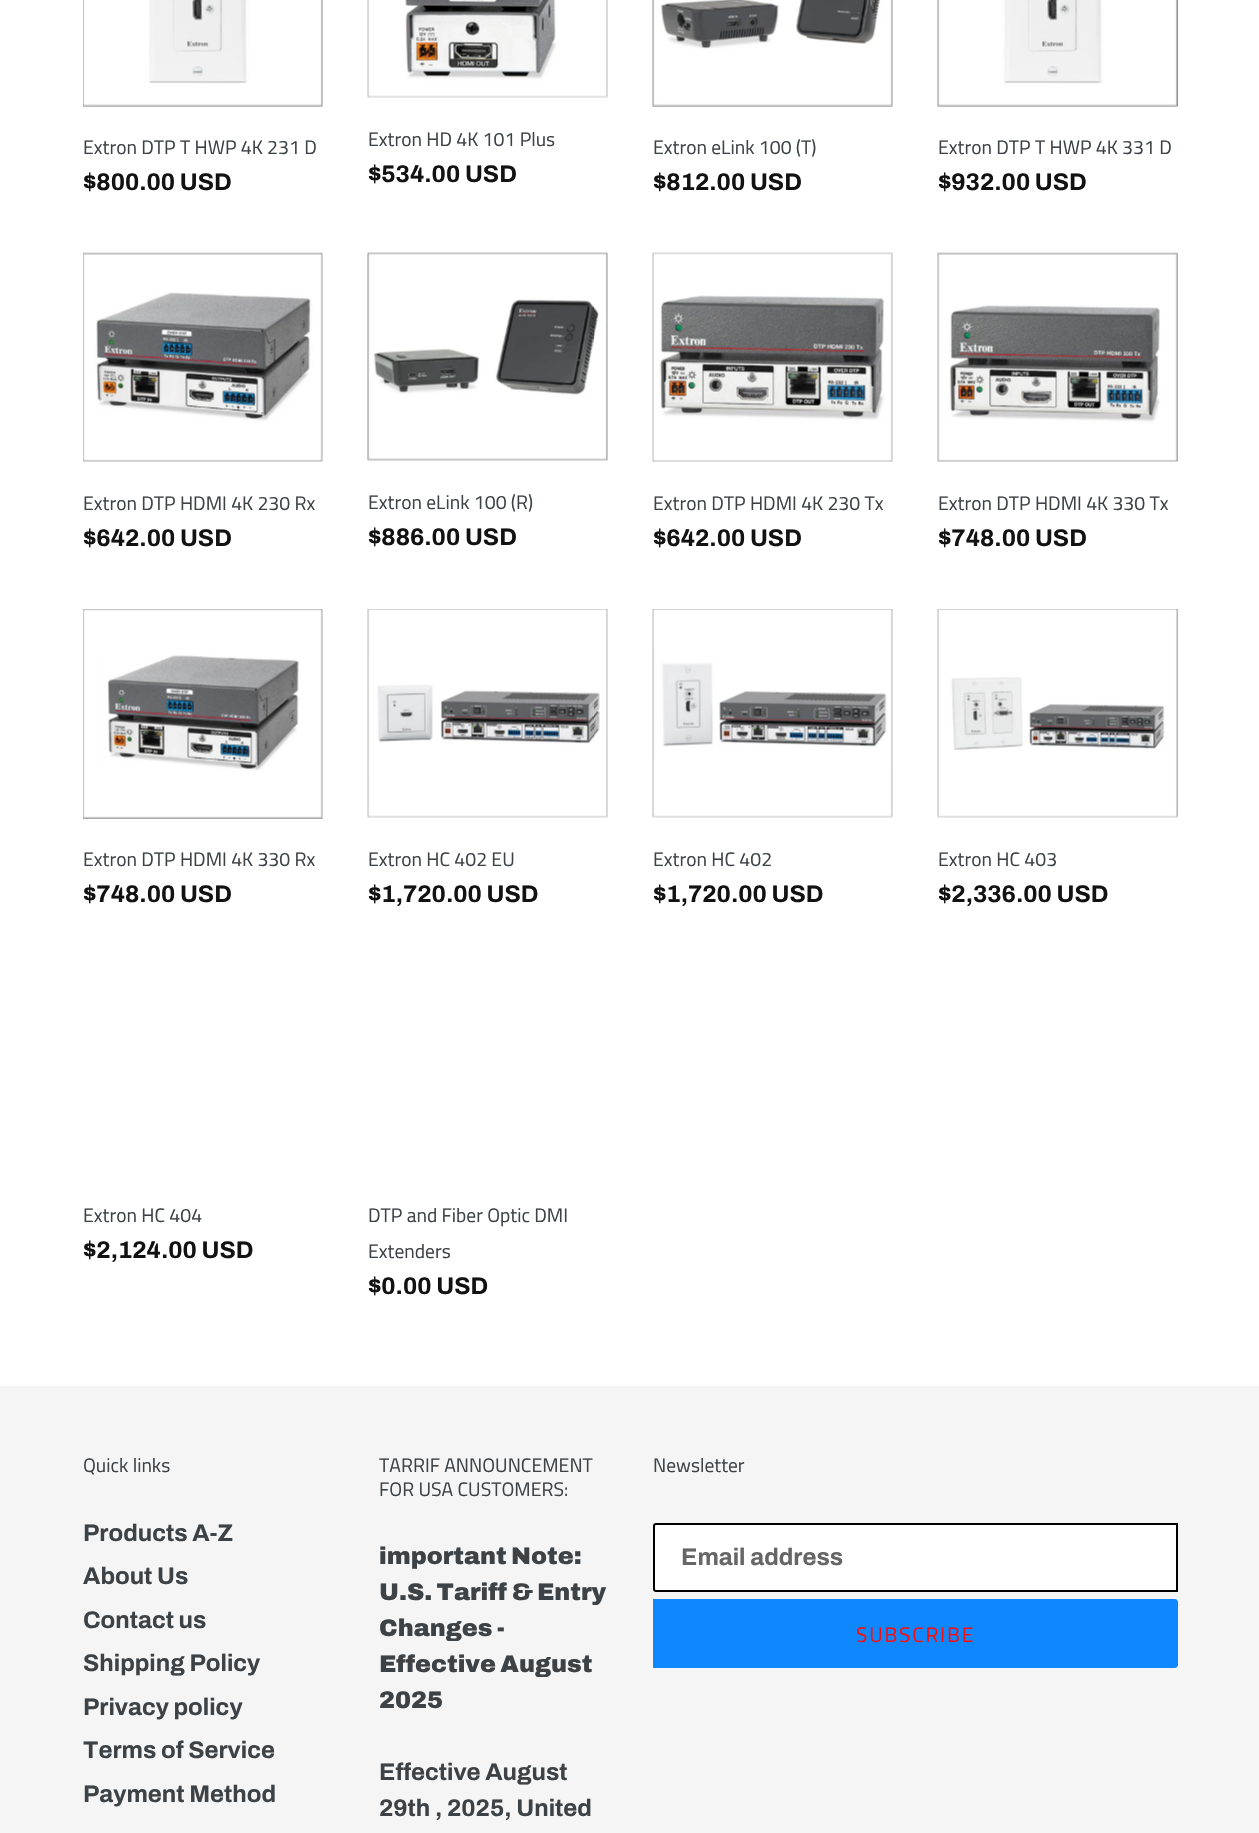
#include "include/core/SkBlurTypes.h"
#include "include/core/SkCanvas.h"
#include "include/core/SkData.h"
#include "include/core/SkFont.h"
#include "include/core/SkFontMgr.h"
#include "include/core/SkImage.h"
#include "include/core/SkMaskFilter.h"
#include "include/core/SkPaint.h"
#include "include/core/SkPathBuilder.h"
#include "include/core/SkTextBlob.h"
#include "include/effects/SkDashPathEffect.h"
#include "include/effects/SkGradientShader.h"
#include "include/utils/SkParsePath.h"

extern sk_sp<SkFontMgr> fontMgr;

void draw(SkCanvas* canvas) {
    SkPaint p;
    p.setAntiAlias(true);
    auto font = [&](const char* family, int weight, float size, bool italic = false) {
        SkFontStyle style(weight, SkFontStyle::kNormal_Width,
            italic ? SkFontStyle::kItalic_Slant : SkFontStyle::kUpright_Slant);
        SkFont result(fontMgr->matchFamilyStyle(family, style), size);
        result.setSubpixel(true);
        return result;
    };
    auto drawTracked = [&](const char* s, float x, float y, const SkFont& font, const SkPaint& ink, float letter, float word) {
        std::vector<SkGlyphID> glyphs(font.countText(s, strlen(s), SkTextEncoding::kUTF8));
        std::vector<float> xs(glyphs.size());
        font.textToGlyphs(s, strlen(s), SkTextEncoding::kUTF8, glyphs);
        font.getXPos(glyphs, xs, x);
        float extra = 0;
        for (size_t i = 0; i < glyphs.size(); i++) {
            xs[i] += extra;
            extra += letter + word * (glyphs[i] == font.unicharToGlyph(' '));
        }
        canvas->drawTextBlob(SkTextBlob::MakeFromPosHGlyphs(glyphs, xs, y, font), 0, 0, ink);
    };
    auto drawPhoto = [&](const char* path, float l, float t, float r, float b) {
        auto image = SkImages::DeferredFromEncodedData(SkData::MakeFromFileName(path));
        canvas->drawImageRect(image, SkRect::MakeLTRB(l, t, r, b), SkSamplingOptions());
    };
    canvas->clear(0xFFFFFFFF);
    drawPhoto("media/1.png", 83, 0, 323, 107);
    auto font1 = font("Titillium Web", 400, 19.5f);
    p.setColor(0xFF3D4246);
    canvas->drawString("Extron DTP T HWP 4K 231 D", 83, 154, font1, p);
    auto font2 = font("Archivo", 700, 24);
    p.setColor(0xFF131212);
    canvas->drawString("$800.00 USD", 83, 190, font2, p);
    drawPhoto("media/2.png", 367, 0, 608, 98);
    p.setColor(0xFF3D4246);
    canvas->drawString("Extron HD 4K 101 Plus", 368, 146, font1, p);
    p.setColor(0xFF131212);
    canvas->drawString("$534.00 USD", 368, 182, font2, p);
    drawPhoto("media/3.png", 652, 0, 893, 107);
    p.setColor(0xFF3D4246);
    canvas->drawString("Extron eLink 100 (T)", 653, 154, font1, p);
    p.setColor(0xFF131212);
    canvas->drawString("$812.00 USD", 653, 190, font2, p);
    drawPhoto("media/4.png", 937, 0, 1178, 107);
    p.setColor(0xFF3D4246);
    canvas->drawString("Extron DTP T HWP 4K 331 D", 938, 154, font1, p);
    p.setColor(0xFF131212);
    canvas->drawString("$932.00 USD", 938, 190, font2, p);
    drawPhoto("media/5.png", 83, 252, 323, 462);
    p.setColor(0xFF3D4246);
    canvas->drawString("Extron DTP HDMI 4K 230 Rx", 83, 510, font1, p);
    p.setColor(0xFF131212);
    canvas->drawString("$642.00 USD", 83, 546, font2, p);
    drawPhoto("media/6.png", 367, 252, 608, 461);
    p.setColor(0xFF3D4246);
    canvas->drawString("Extron eLink 100 (R)", 368, 509, font1, p);
    p.setColor(0xFF131212);
    canvas->drawString("$886.00 USD", 368, 545, font2, p);
    drawPhoto("media/7.png", 652, 252, 893, 462);
    p.setColor(0xFF3D4246);
    canvas->drawString("Extron DTP HDMI 4K 230 Tx", 653, 510, font1, p);
    p.setColor(0xFF131212);
    canvas->drawString("$642.00 USD", 653, 546, font2, p);
    drawPhoto("media/8.png", 937, 252, 1178, 462);
    p.setColor(0xFF3D4246);
    canvas->drawString("Extron DTP HDMI 4K 330 Tx", 938, 510, font1, p);
    p.setColor(0xFF131212);
    canvas->drawString("$748.00 USD", 938, 546, font2, p);
    drawPhoto("media/9.png", 83, 609, 323, 819);
    p.setColor(0xFF3D4246);
    canvas->drawString("Extron DTP HDMI 4K 330 Rx", 83, 866, font1, p);
    p.setColor(0xFF131212);
    canvas->drawString("$748.00 USD", 83, 902, font2, p);
    drawPhoto("media/10.png", 367, 609, 608, 818);
    p.setColor(0xFF3D4246);
    canvas->drawString("Extron HC 402 EU", 368, 866, font1, p);
    p.setColor(0xFF131212);
    canvas->drawString("$1,720.00 USD", 368, 902, font2, p);
    drawPhoto("media/11.png", 652, 609, 893, 818);
    p.setColor(0xFF3D4246);
    canvas->drawString("Extron HC 402", 653, 866, font1, p);
    p.setColor(0xFF131212);
    canvas->drawString("$1,720.00 USD", 653, 902, font2, p);
    drawPhoto("media/12.png", 937, 609, 1178, 818);
    p.setColor(0xFF3D4246);
    canvas->drawString("Extron HC 403", 938, 866, font1, p);
    p.setColor(0xFF131212);
    canvas->drawString("$2,336.00 USD", 938, 902, font2, p);
    p.setColor(0xFF3D4246);
    canvas->drawString("Extron HC 404", 83, 1222, font1, p);
    p.setColor(0xFF131212);
    canvas->drawString("$2,124.00 USD", 83, 1258, font2, p);
    p.setColor(0xFF3D4246);
    canvas->drawString("DTP and Fiber Optic DMI", 368, 1222, font1, p);
    canvas->drawString("Extenders", 368, 1258, font1, p);
    p.setColor(0xFF131212);
    canvas->drawString("$0.00 USD", 368, 1294, font2, p);
    p.setColor(0xFFF5F5F5);
    canvas->drawRect(SkRect::MakeLTRB(0, 1386, 1259, 1833), p);
    p.setColor(0xFF3D4246);
    canvas->drawString("Quick links", 83, 1472, font1, p);
    {
        const struct { const char* s; float x, y; } items[] = {
            {"Products A-Z", 83, 1541},
            {"About Us", 83, 1584},
            {"Contact us", 83, 1628},
            {"Shipping Policy", 83, 1671},
            {"Privacy policy", 83, 1715},
            {"Terms of Service", 83, 1758},
            {"Payment Method", 83, 1802},
        };
        for (auto [s, x, y] : items) {
            canvas->drawString(s, x, y, font2, p);
        }
    }
    canvas->drawString("TARRIF ANNOUNCEMENT", 379, 1472, font1, p);
    canvas->drawString("FOR USA CUSTOMERS:", 379, 1496, font1, p);
    auto font3 = font("Archivo", 900, 24);
    {
        const struct { const char* s; float x, y; } items[] = {
            {"important Note:", 379, 1564},
            {"U.S. Tariff & Entry", 379, 1600},
            {"Changes -", 379, 1636},
            {"Effective August", 379, 1672},
            {"2025", 379, 1708},
        };
        for (auto [s, x, y] : items) {
            canvas->drawString(s, x, y, font3, p);
        }
    }
    canvas->drawString("Effective August", 379, 1780, font2, p);
    canvas->drawString("29th , 2025, United", 379, 1816, font2, p);
    canvas->drawString("Newsletter", 653, 1472, font1, p);
    p.setColor(0xFFFFFFFF);
    canvas->drawPath(SkPathBuilder().moveTo(656, 1524).lineTo(1177, 1524).lineTo(1177, 1591).lineTo(656, 1591).cubicTo(655, 1591, 654, 1590, 654, 1589).lineTo(654, 1526).cubicTo(654, 1525, 655, 1524, 656, 1524).close().detach(), p);
    p.setStyle(SkPaint::kStroke_Style);
    p.setStrokeWidth(2);
    p.setColor(0xFF000000);
    canvas->drawPath(SkPathBuilder().moveTo(656, 1524).lineTo(1177, 1524).lineTo(1177, 1591).lineTo(656, 1591).cubicTo(655, 1591, 654, 1590, 654, 1589).lineTo(654, 1526).cubicTo(654, 1525, 655, 1524, 656, 1524).close().detach(), p);
    p.setStyle(SkPaint::kFill_Style);
    p.setColor(0xFF666666);
    canvas->drawString("Email address", 681, 1565, font2, p);
    p.setColor(0xFF0F87FF);
    canvas->drawPath(SkPathBuilder().moveTo(653, 1599).lineTo(1175, 1599).cubicTo(1176.5f, 1599, 1178, 1600.5f, 1178, 1602).lineTo(1178, 1665).cubicTo(1178, 1666.5f, 1176.5f, 1668, 1175, 1668).lineTo(653, 1668).close().detach(), p);
    auto font4 = font("Titillium Web", 400, 21);
    p.setColor(0xFFF70F0F);
    drawTracked("SUBSCRIBE", 856, 1642, font4, p, 1.75f, 0);
}
